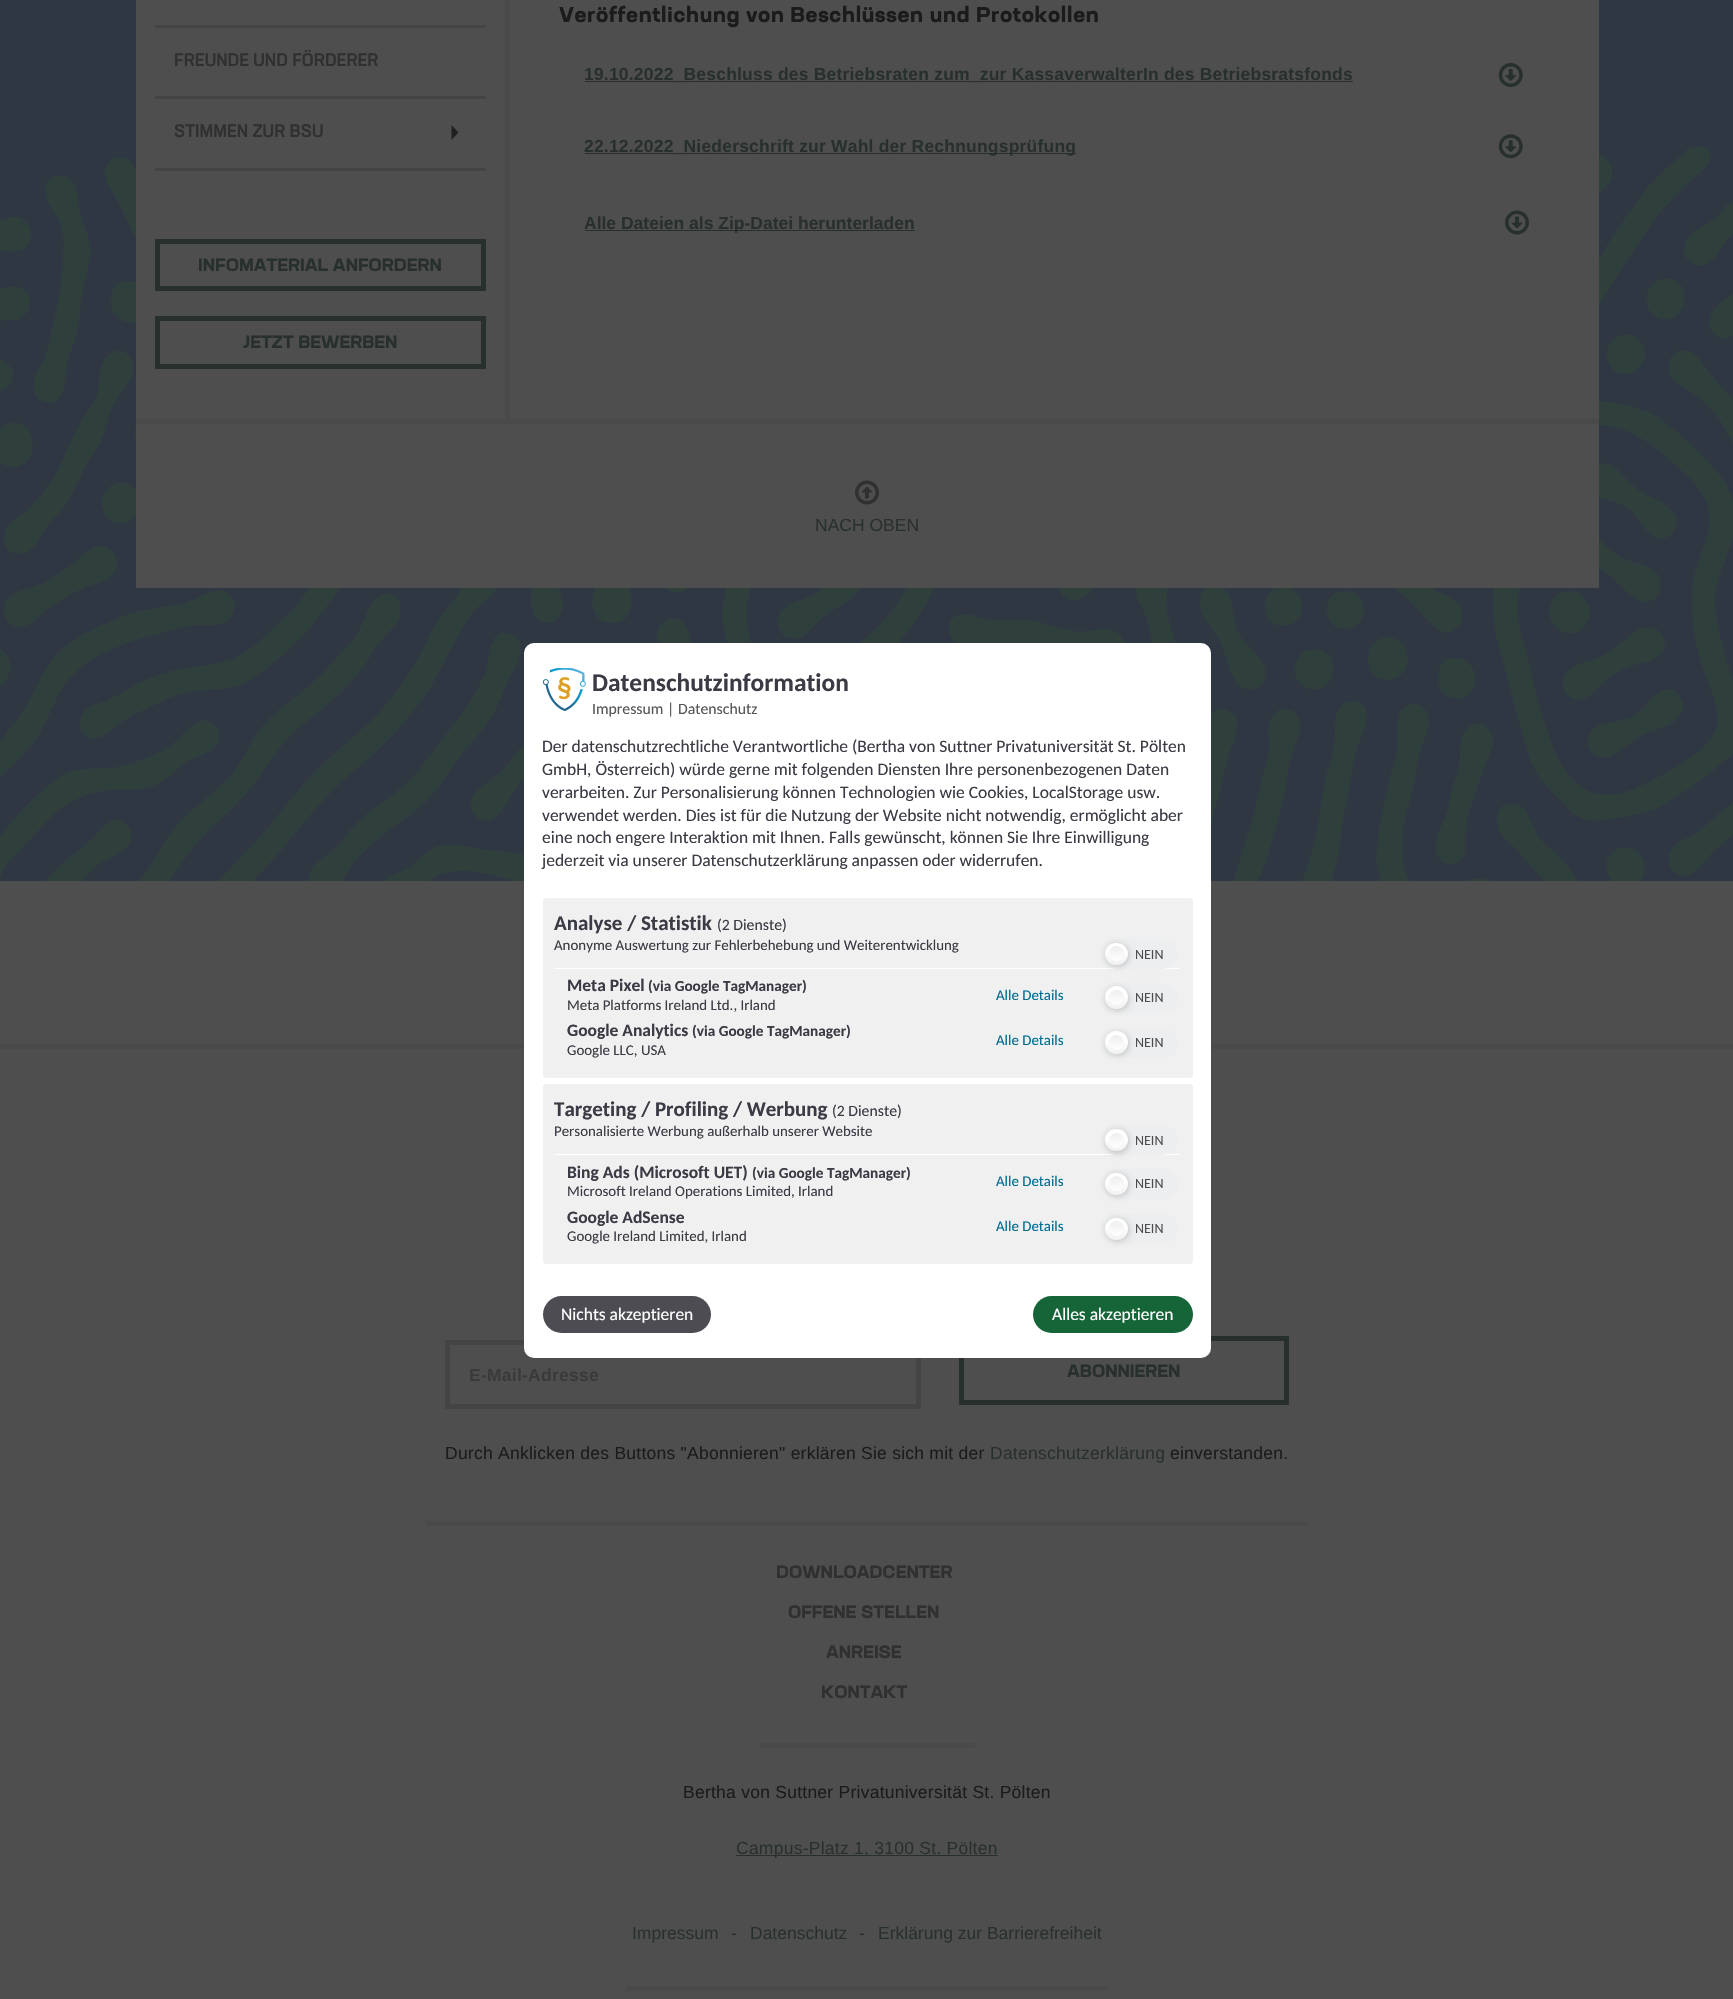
#include "include/core/SkBlurTypes.h"
#include "include/core/SkCanvas.h"
#include "include/core/SkData.h"
#include "include/core/SkFont.h"
#include "include/core/SkFontMgr.h"
#include "include/core/SkImage.h"
#include "include/core/SkMaskFilter.h"
#include "include/core/SkPaint.h"
#include "include/core/SkPathBuilder.h"
#include "include/core/SkTextBlob.h"
#include "include/effects/SkDashPathEffect.h"
#include "include/effects/SkGradientShader.h"
#include "include/utils/SkParsePath.h"

extern sk_sp<SkFontMgr> fontMgr;

void draw(SkCanvas* canvas) {
    SkPaint p;
    p.setAntiAlias(true);
    auto font = [&](const char* family, int weight, float size, bool italic = false) {
        SkFontStyle style(weight, SkFontStyle::kNormal_Width,
            italic ? SkFontStyle::kItalic_Slant : SkFontStyle::kUpright_Slant);
        SkFont result(fontMgr->matchFamilyStyle(family, style), size);
        result.setSubpixel(true);
        return result;
    };
    auto drawTracked = [&](const char* s, float x, float y, const SkFont& font, const SkPaint& ink, float letter, float word) {
        std::vector<SkGlyphID> glyphs(font.countText(s, strlen(s), SkTextEncoding::kUTF8));
        std::vector<float> xs(glyphs.size());
        font.textToGlyphs(s, strlen(s), SkTextEncoding::kUTF8, glyphs);
        font.getXPos(glyphs, xs, x);
        float extra = 0;
        for (size_t i = 0; i < glyphs.size(); i++) {
            xs[i] += extra;
            extra += letter + word * (glyphs[i] == font.unicharToGlyph(' '));
        }
        canvas->drawTextBlob(SkTextBlob::MakeFromPosHGlyphs(glyphs, xs, y, font), 0, 0, ink);
    };
    auto drawPhoto = [&](const char* path, float l, float t, float r, float b) {
        auto image = SkImages::DeferredFromEncodedData(SkData::MakeFromFileName(path));
        canvas->drawImageRect(image, SkRect::MakeLTRB(l, t, r, b), SkSamplingOptions());
    };
    canvas->clear(0xFF2F3743);
    drawPhoto("media/5.png", 0, 146, 1733, 881);
    {
        const struct { float l, t, r, b; SkColor color; } items[] = {
            {136, 0, 1599, 588, 0xFF4E4E4E},
            {505, 0, 510, 419, 0xFF4A4A4A},
            {155, 168, 486, 171, 0xFF444444},
            {155, 25, 486, 28, 0xFF444444},
        };
        for (auto [l, t, r, b, color] : items) {
            p.setColor(color);
            canvas->drawRect(SkRect::MakeLTRB(l, t, r, b), p);
        }
    }
    auto font1 = font("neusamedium", 400, 18);
    p.setColor(0xFF303030);
    canvas->drawString("FREUNDE UND FÖRDERER", 174, 66, font1, p);
    p.setColor(0xFF444444);
    canvas->drawRect(SkRect::MakeLTRB(155, 96, 486, 99), p);
    p.setColor(0xFF303030);
    canvas->drawString("STIMMEN ZUR BSU", 174, 137, font1, p);
    p.setColor(0xFF20201F);
    canvas->drawPath(SkPathBuilder().moveTo(458.5f, 132.5f).lineTo(451.5f, 125).lineTo(451.5f, 140).close().detach(), p);
    p.setStyle(SkPaint::kStroke_Style);
    p.setStrokeWidth(5);
    p.setColor(0xFF28302E);
    canvas->drawRect(SkRect::MakeLTRB(157.5f, 241.5f, 483.5f, 288.5f), p);
    auto font2 = font("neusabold", 400, 17.5f);
    p.setStyle(SkPaint::kFill_Style);
    canvas->drawString("INFOMATERIAL ANFORDERN", 198, 271, font2, p);
    p.setStyle(SkPaint::kStroke_Style);
    canvas->drawRect(SkRect::MakeLTRB(157.5f, 318.5f, 483.5f, 366.5f), p);
    p.setStyle(SkPaint::kFill_Style);
    canvas->drawString("JETZT BEWERBEN", 243, 348, font2, p);
    auto font3 = font("neusabold", 400, 21.25f);
    p.setColor(0xFF1B1B1B);
    drawTracked("Veröffentlichung von Beschlüssen und Protokollen", 559, 22, font3, p, 0.25f, 0);
    p.setColor(0xFF28302E);
    canvas->drawRect(SkRect::MakeLTRB(585, 81, 1353, 82), p);
    auto font4 = font("Liberation Sans", 700, 17.5f);
    drawTracked("19.10.2022_Beschluss des Betriebsraten zum_zur KassaverwalterIn des Betriebsratsfonds", 584, 80, font4, p, 0.2f, 0);
    drawPhoto("media/1.png", 1498, 63, 1523, 87);
    canvas->drawRect(SkRect::MakeLTRB(585, 153, 1076, 154), p);
    drawTracked("22.12.2022_Niederschrift zur Wahl der Rechnungsprüfung", 584, 152, font4, p, 0.2f, 0);
    drawPhoto("media/2.png", 1498, 134, 1523, 159);
    canvas->drawRect(SkRect::MakeLTRB(585, 230, 915, 231), p);
    canvas->drawString("Alle Dateien als Zip-Datei herunterladen", 584, 229, font4, p);
    drawPhoto("media/3.png", 1505, 210, 1529, 235);
    p.setColor(0xFF4A4A4A);
    canvas->drawRect(SkRect::MakeLTRB(136, 419, 1599, 424), p);
    drawPhoto("media/4.png", 855, 480, 879, 505);
    auto font5 = font("Liberation Sans", 400, 17.5f);
    p.setColor(0xFF28302E);
    canvas->drawString("NACH OBEN", 815, 531, font5, p);
    {
        const struct { float l, t, r, b; SkColor color; } items[] = {
            {0, 881, 1733, 1999, 0xFF4E4E4E},
            {0, 1044, 1733, 1049, 0xFF4A4A4A},
            {426, 1521, 1308, 1526, 0xFF4A4A4A},
        };
        for (auto [l, t, r, b, color] : items) {
            p.setColor(color);
            canvas->drawRect(SkRect::MakeLTRB(l, t, r, b), p);
        }
    }
    p.setStyle(SkPaint::kStroke_Style);
    p.setColor(0xFF444444);
    canvas->drawRect(SkRect::MakeLTRB(447.5f, 1342.5f, 918.5f, 1406.5f), p);
    p.setStyle(SkPaint::kFill_Style);
    p.setColor(0xFF3A3A3A);
    drawTracked("E-Mail-Adresse", 469, 1381, font4, p, 0.25f, 0);
    p.setStyle(SkPaint::kStroke_Style);
    p.setColor(0xFF28302E);
    canvas->drawRect(SkRect::MakeLTRB(961.5f, 1338.5f, 1286.5f, 1402.5f), p);
    p.setStyle(SkPaint::kFill_Style);
    canvas->drawString("ABONNIEREN", 1067, 1377, font2, p);
    p.setColor(0xFF1B1B1B);
    drawTracked("Durch Anklicken des Buttons \"Abonnieren\" erklären Sie sich mit der", 445, 1459, font5, p, 0.25f, 0);
    p.setColor(0xFF28302E);
    drawTracked("Datenschutzerklärung", 990, 1459, font5, p, 0.25f, 0);
    p.setColor(0xFF1B1B1B);
    drawTracked("einverstanden.", 1170, 1459, font5, p, 0.25f, 0);
    p.setColor(0xFF4A4A4A);
    canvas->drawRect(SkRect::MakeLTRB(759, 1743, 975, 1748), p);
    p.setColor(0xFF303030);
    {
        const struct { const char* s; float x, y; } items[] = {
            {"DOWNLOADCENTER", 776, 1578},
            {"OFFENE STELLEN", 788, 1618},
            {"ANREISE", 826, 1658},
            {"KONTAKT", 821, 1698},
        };
        for (auto [s, x, y] : items) {
            canvas->drawString(s, x, y, font2, p);
        }
    }
    p.setColor(0xFF1B1B1B);
    drawTracked("Bertha von Suttner Privatuniversität St. Pölten", 683, 1798, font5, p, 0.25f, 0);
    p.setColor(0xFF28302E);
    canvas->drawRect(SkRect::MakeLTRB(736, 1855, 998, 1856), p);
    drawTracked("Campus-Platz 1, 3100 St. Pölten", 736, 1854, font5, p, 0.25f, 0);
    p.setColor(0xFF4A4A4A);
    canvas->drawRect(SkRect::MakeLTRB(626, 1986, 1108, 1991), p);
    p.setColor(0xFF28302E);
    {
        const struct { const char* s; float x, y; } items[] = {
            {"Impressum", 632, 1939},
            {"-", 731, 1939},
            {"Datenschutz", 750, 1939},
            {"-", 859, 1939},
            {"Erklärung zur Barrierefreiheit", 878, 1939},
        };
        for (auto [s, x, y] : items) {
            canvas->drawString(s, x, y, font5, p);
        }
    }
    p.setColor(0xFFFFFFFF);
    canvas->drawRoundRect(SkRect::MakeLTRB(524, 643, 1211, 1358), 10, 10, p);
    drawPhoto("media/6.png", 543, 668, 586, 711);
    auto font6 = font("Carlito", 700, 25.4f);
    p.setColor(0xFF3B3B45);
    canvas->drawString("Datenschutzinformation", 592, 691, font6, p);
    auto font7 = font("Carlito", 400, 15.75f);
    p.setColor(0xFF555555);
    {
        const struct { const char* s; float x, y; } items[] = {
            {"Impressum", 592, 714},
            {"|", 667, 714},
            {"Datenschutz", 678, 714},
        };
        for (auto [s, x, y] : items) {
            canvas->drawString(s, x, y, font7, p);
        }
    }
    auto font8 = font("Carlito", 400, 17.5f);
    p.setColor(0xFF3B3B45);
    {
        const struct { const char* s; float x, y; } items[] = {
            {"Der datenschutzrechtliche Verantwortliche (Bertha von Suttner Privatuniversität St. Pölten", 542, 752},
            {"GmbH, Österreich) würde gerne mit folgenden Diensten Ihre personenbezogenen Daten", 542, 775},
            {"verarbeiten. Zur Personalisierung können Technologien wie Cookies, LocalStorage usw.", 542, 798},
            {"verwendet werden. Dies ist für die Nutzung der Website nicht notwendig, ermöglicht aber", 542, 821},
            {"eine noch engere Interaktion mit Ihnen. Falls gewünscht, können Sie Ihre Einwilligung", 542, 843},
            {"jederzeit via unserer Datenschutzerklärung anpassen oder widerrufen.", 542, 866},
        };
        for (auto [s, x, y] : items) {
            canvas->drawString(s, x, y, font8, p);
        }
    }
    p.setColor(0xFFF0F0F0);
    canvas->drawRoundRect(SkRect::MakeLTRB(543, 898, 1193, 1078), 4, 4, p);
    auto font9 = font("Carlito", 700, 21);
    p.setColor(0xFF3B3B45);
    canvas->drawString("Analyse / Statistik", 554, 930, font9, p);
    canvas->drawString("(2 Dienste)", 717, 930, font7, p);
    auto font10 = font("Carlito", 400, 14.9f);
    canvas->drawString("Anonyme Auswertung zur Fehlerbehebung und Weiterentwicklung", 554, 950, font10, p);
    p.setColor(0xFFFFFFFF);
    canvas->drawRect(SkRect::MakeLTRB(555, 968, 1180, 969), p);
    p.setColor(0xFFECEEEF);
    canvas->drawRoundRect(SkRect::MakeLTRB(1101, 939, 1178, 969), 15, 15, p);
    p.setColor(0x33000000);
    p.setMaskFilter(SkMaskFilter::MakeBlur(kNormal_SkBlurStyle, 3));
    canvas->drawRoundRect(SkRect::MakeLTRB(1106, 944, 1129, 966), 11, 11, p);
    p.setMaskFilter(nullptr);
    {
        const SkColor colors[] = {0xFFFFFFFF, 0xFFF0F0F0};
        const float stops[] = {0.4f, 1};
        const SkPoint ends[] = {{1116, 942}, {1116, 965}};
        p.setShader(SkGradientShader::MakeLinear(ends, colors, stops, 2, SkTileMode::kClamp));
        p.setAlpha(255);
    }
    canvas->drawRoundRect(SkRect::MakeLTRB(1105, 943, 1128, 965), 11, 11, p);
    {
        const SkColor colors[] = {0xFFEEEEEE, 0xFFFFFFFF};
        const float stops[] = {0, 1};
        const SkPoint ends[] = {{1116, 946}, {1116, 961}};
        p.setShader(SkGradientShader::MakeLinear(ends, colors, stops, 2, SkTileMode::kClamp));
        p.setAlpha(255);
    }
    canvas->drawCircle(1116.5f, 953.5f, 7.5f, p);
    auto font11 = font("Carlito", 400, 14);
    p.setShader(nullptr);
    p.setColor(0xFF4D4C53);
    canvas->drawString("NEIN", 1135, 959, font11, p);
    auto font12 = font("Carlito", 700, 17.5f);
    p.setColor(0xFF3B3B45);
    canvas->drawString("Meta Pixel", 567, 991, font12, p);
    auto font13 = font("Carlito", 700, 15.25f);
    canvas->drawString("(via Google TagManager)", 648, 991, font13, p);
    canvas->drawString("Meta Platforms Ireland Ltd., Irland", 567, 1010, font10, p);
    p.setColor(0xFF006D91);
    canvas->drawString("Alle Details", 996, 1000, font10, p);
    p.setColor(0xFFECEEEF);
    canvas->drawRoundRect(SkRect::MakeLTRB(1101, 983, 1178, 1013), 15, 15, p);
    p.setColor(0x33000000);
    p.setMaskFilter(SkMaskFilter::MakeBlur(kNormal_SkBlurStyle, 3));
    canvas->drawRoundRect(SkRect::MakeLTRB(1106, 988, 1129, 1010), 11, 11, p);
    p.setMaskFilter(nullptr);
    {
        const SkColor colors[] = {0xFFFFFFFF, 0xFFF0F0F0};
        const float stops[] = {0.4f, 1};
        const SkPoint ends[] = {{1116, 986}, {1116, 1009}};
        p.setShader(SkGradientShader::MakeLinear(ends, colors, stops, 2, SkTileMode::kClamp));
        p.setAlpha(255);
    }
    canvas->drawCircle(1116.5f, 997.5f, 11.5f, p);
    {
        const SkColor colors[] = {0xFFEEEEEE, 0xFFFFFFFF};
        const float stops[] = {0, 1};
        const SkPoint ends[] = {{1116, 990}, {1116, 1005}};
        p.setShader(SkGradientShader::MakeLinear(ends, colors, stops, 2, SkTileMode::kClamp));
        p.setAlpha(255);
    }
    canvas->drawCircle(1116.5f, 997.5f, 7.5f, p);
    p.setShader(nullptr);
    p.setColor(0xFF4D4C53);
    canvas->drawString("NEIN", 1135, 1002, font11, p);
    p.setColor(0xFF3B3B45);
    canvas->drawString("Google Analytics", 567, 1036, font12, p);
    canvas->drawString("(via Google TagManager)", 692, 1036, font13, p);
    canvas->drawString("Google LLC, USA", 567, 1055, font10, p);
    p.setColor(0xFF006D91);
    canvas->drawString("Alle Details", 996, 1045, font10, p);
    p.setColor(0xFFECEEEF);
    canvas->drawRoundRect(SkRect::MakeLTRB(1101, 1028, 1178, 1058), 15, 15, p);
    p.setColor(0x33000000);
    p.setMaskFilter(SkMaskFilter::MakeBlur(kNormal_SkBlurStyle, 3));
    canvas->drawRoundRect(SkRect::MakeLTRB(1106, 1033, 1129, 1055), 11, 11, p);
    p.setMaskFilter(nullptr);
    {
        const SkColor colors[] = {0xFFFFFFFF, 0xFFF0F0F0};
        const float stops[] = {0.4f, 1};
        const SkPoint ends[] = {{1116, 1031}, {1116, 1054}};
        p.setShader(SkGradientShader::MakeLinear(ends, colors, stops, 2, SkTileMode::kClamp));
        p.setAlpha(255);
    }
    canvas->drawCircle(1116.5f, 1042.5f, 11.5f, p);
    {
        const SkColor colors[] = {0xFFEEEEEE, 0xFFFFFFFF};
        const float stops[] = {0, 1};
        const SkPoint ends[] = {{1116, 1035}, {1116, 1050}};
        p.setShader(SkGradientShader::MakeLinear(ends, colors, stops, 2, SkTileMode::kClamp));
        p.setAlpha(255);
    }
    canvas->drawCircle(1116.5f, 1042.5f, 7.5f, p);
    p.setShader(nullptr);
    p.setColor(0xFF4D4C53);
    canvas->drawString("NEIN", 1135, 1047, font11, p);
    p.setColor(0xFFF0F0F0);
    canvas->drawRoundRect(SkRect::MakeLTRB(543, 1084, 1193, 1264), 4, 4, p);
    p.setColor(0xFF3B3B45);
    canvas->drawString("Targeting / Profiling / Werbung", 554, 1116, font9, p);
    canvas->drawString("(2 Dienste)", 832, 1116, font7, p);
    canvas->drawString("Personalisierte Werbung außerhalb unserer Website", 554, 1136, font10, p);
    p.setColor(0xFFFFFFFF);
    canvas->drawRect(SkRect::MakeLTRB(555, 1154, 1180, 1155), p);
    p.setColor(0xFFECEEEF);
    canvas->drawRoundRect(SkRect::MakeLTRB(1101, 1125, 1178, 1155), 15, 15, p);
    p.setColor(0x33000000);
    p.setMaskFilter(SkMaskFilter::MakeBlur(kNormal_SkBlurStyle, 3));
    canvas->drawRoundRect(SkRect::MakeLTRB(1106, 1130, 1129, 1153), 11.5f, 11.5f, p);
    p.setMaskFilter(nullptr);
    {
        const SkColor colors[] = {0xFFFFFFFF, 0xFFF0F0F0};
        const float stops[] = {0.4f, 1};
        const SkPoint ends[] = {{1116, 1129}, {1116, 1151}};
        p.setShader(SkGradientShader::MakeLinear(ends, colors, stops, 2, SkTileMode::kClamp));
        p.setAlpha(255);
    }
    canvas->drawRoundRect(SkRect::MakeLTRB(1105, 1129, 1128, 1151), 11, 11, p);
    {
        const SkColor colors[] = {0xFFEEEEEE, 0xFFFFFFFF};
        const float stops[] = {0, 1};
        const SkPoint ends[] = {{1116, 1132}, {1116, 1147}};
        p.setShader(SkGradientShader::MakeLinear(ends, colors, stops, 2, SkTileMode::kClamp));
        p.setAlpha(255);
    }
    canvas->drawCircle(1116.5f, 1140.5f, 7.5f, p);
    p.setShader(nullptr);
    p.setColor(0xFF4D4C53);
    canvas->drawString("NEIN", 1135, 1145, font11, p);
    p.setColor(0xFF3B3B45);
    canvas->drawString("Bing Ads (Microsoft UET)", 567, 1178, font12, p);
    canvas->drawString("(via Google TagManager)", 752, 1178, font13, p);
    canvas->drawString("Microsoft Ireland Operations Limited, Irland", 567, 1196, font10, p);
    p.setColor(0xFF006D91);
    canvas->drawString("Alle Details", 996, 1186, font10, p);
    p.setColor(0xFFECEEEF);
    canvas->drawRoundRect(SkRect::MakeLTRB(1101, 1169, 1178, 1199), 15, 15, p);
    p.setColor(0x33000000);
    p.setMaskFilter(SkMaskFilter::MakeBlur(kNormal_SkBlurStyle, 3));
    canvas->drawRoundRect(SkRect::MakeLTRB(1106, 1174, 1129, 1196), 11, 11, p);
    p.setMaskFilter(nullptr);
    {
        const SkColor colors[] = {0xFFFFFFFF, 0xFFF0F0F0};
        const float stops[] = {0.4f, 1};
        const SkPoint ends[] = {{1116, 1172}, {1116, 1195}};
        p.setShader(SkGradientShader::MakeLinear(ends, colors, stops, 2, SkTileMode::kClamp));
        p.setAlpha(255);
    }
    canvas->drawRoundRect(SkRect::MakeLTRB(1105, 1173, 1128, 1195), 11, 11, p);
    {
        const SkColor colors[] = {0xFFEEEEEE, 0xFFFFFFFF};
        const float stops[] = {0, 1};
        const SkPoint ends[] = {{1116, 1176}, {1116, 1191}};
        p.setShader(SkGradientShader::MakeLinear(ends, colors, stops, 2, SkTileMode::kClamp));
        p.setAlpha(255);
    }
    canvas->drawCircle(1116.5f, 1183.5f, 7.5f, p);
    p.setShader(nullptr);
    p.setColor(0xFF4D4C53);
    canvas->drawString("NEIN", 1135, 1188, font11, p);
    p.setColor(0xFF3B3B45);
    canvas->drawString("Google AdSense", 567, 1223, font12, p);
    canvas->drawString("Google Ireland Limited, Irland", 567, 1241, font10, p);
    p.setColor(0xFF006D91);
    canvas->drawString("Alle Details", 996, 1231, font10, p);
    p.setColor(0xFFECEEEF);
    canvas->drawRoundRect(SkRect::MakeLTRB(1101, 1214, 1178, 1244), 15, 15, p);
    p.setColor(0x33000000);
    p.setMaskFilter(SkMaskFilter::MakeBlur(kNormal_SkBlurStyle, 3));
    canvas->drawRoundRect(SkRect::MakeLTRB(1106, 1219, 1129, 1241), 11, 11, p);
    p.setMaskFilter(nullptr);
    {
        const SkColor colors[] = {0xFFFFFFFF, 0xFFF0F0F0};
        const float stops[] = {0.4f, 1};
        const SkPoint ends[] = {{1116, 1217}, {1116, 1240}};
        p.setShader(SkGradientShader::MakeLinear(ends, colors, stops, 2, SkTileMode::kClamp));
        p.setAlpha(255);
    }
    canvas->drawRoundRect(SkRect::MakeLTRB(1105, 1218, 1128, 1240), 11, 11, p);
    {
        const SkColor colors[] = {0xFFEEEEEE, 0xFFFFFFFF};
        const float stops[] = {0, 1};
        const SkPoint ends[] = {{1116, 1221}, {1116, 1236}};
        p.setShader(SkGradientShader::MakeLinear(ends, colors, stops, 2, SkTileMode::kClamp));
        p.setAlpha(255);
    }
    canvas->drawCircle(1116.5f, 1228.5f, 7.5f, p);
    p.setShader(nullptr);
    p.setColor(0xFF4D4C53);
    canvas->drawString("NEIN", 1135, 1233, font11, p);
    canvas->drawRoundRect(SkRect::MakeLTRB(543, 1296, 711, 1333), 18.5f, 18.5f, p);
    p.setColor(0xFFFFFFFF);
    canvas->drawString("Nichts akzeptieren", 561, 1320, font8, p);
    p.setColor(0xFF156539);
    canvas->drawRoundRect(SkRect::MakeLTRB(1033, 1296, 1193, 1333), 18.5f, 18.5f, p);
    p.setColor(0xFFFFFFFF);
    canvas->drawString("Alles akzeptieren", 1052, 1320, font8, p);
}
